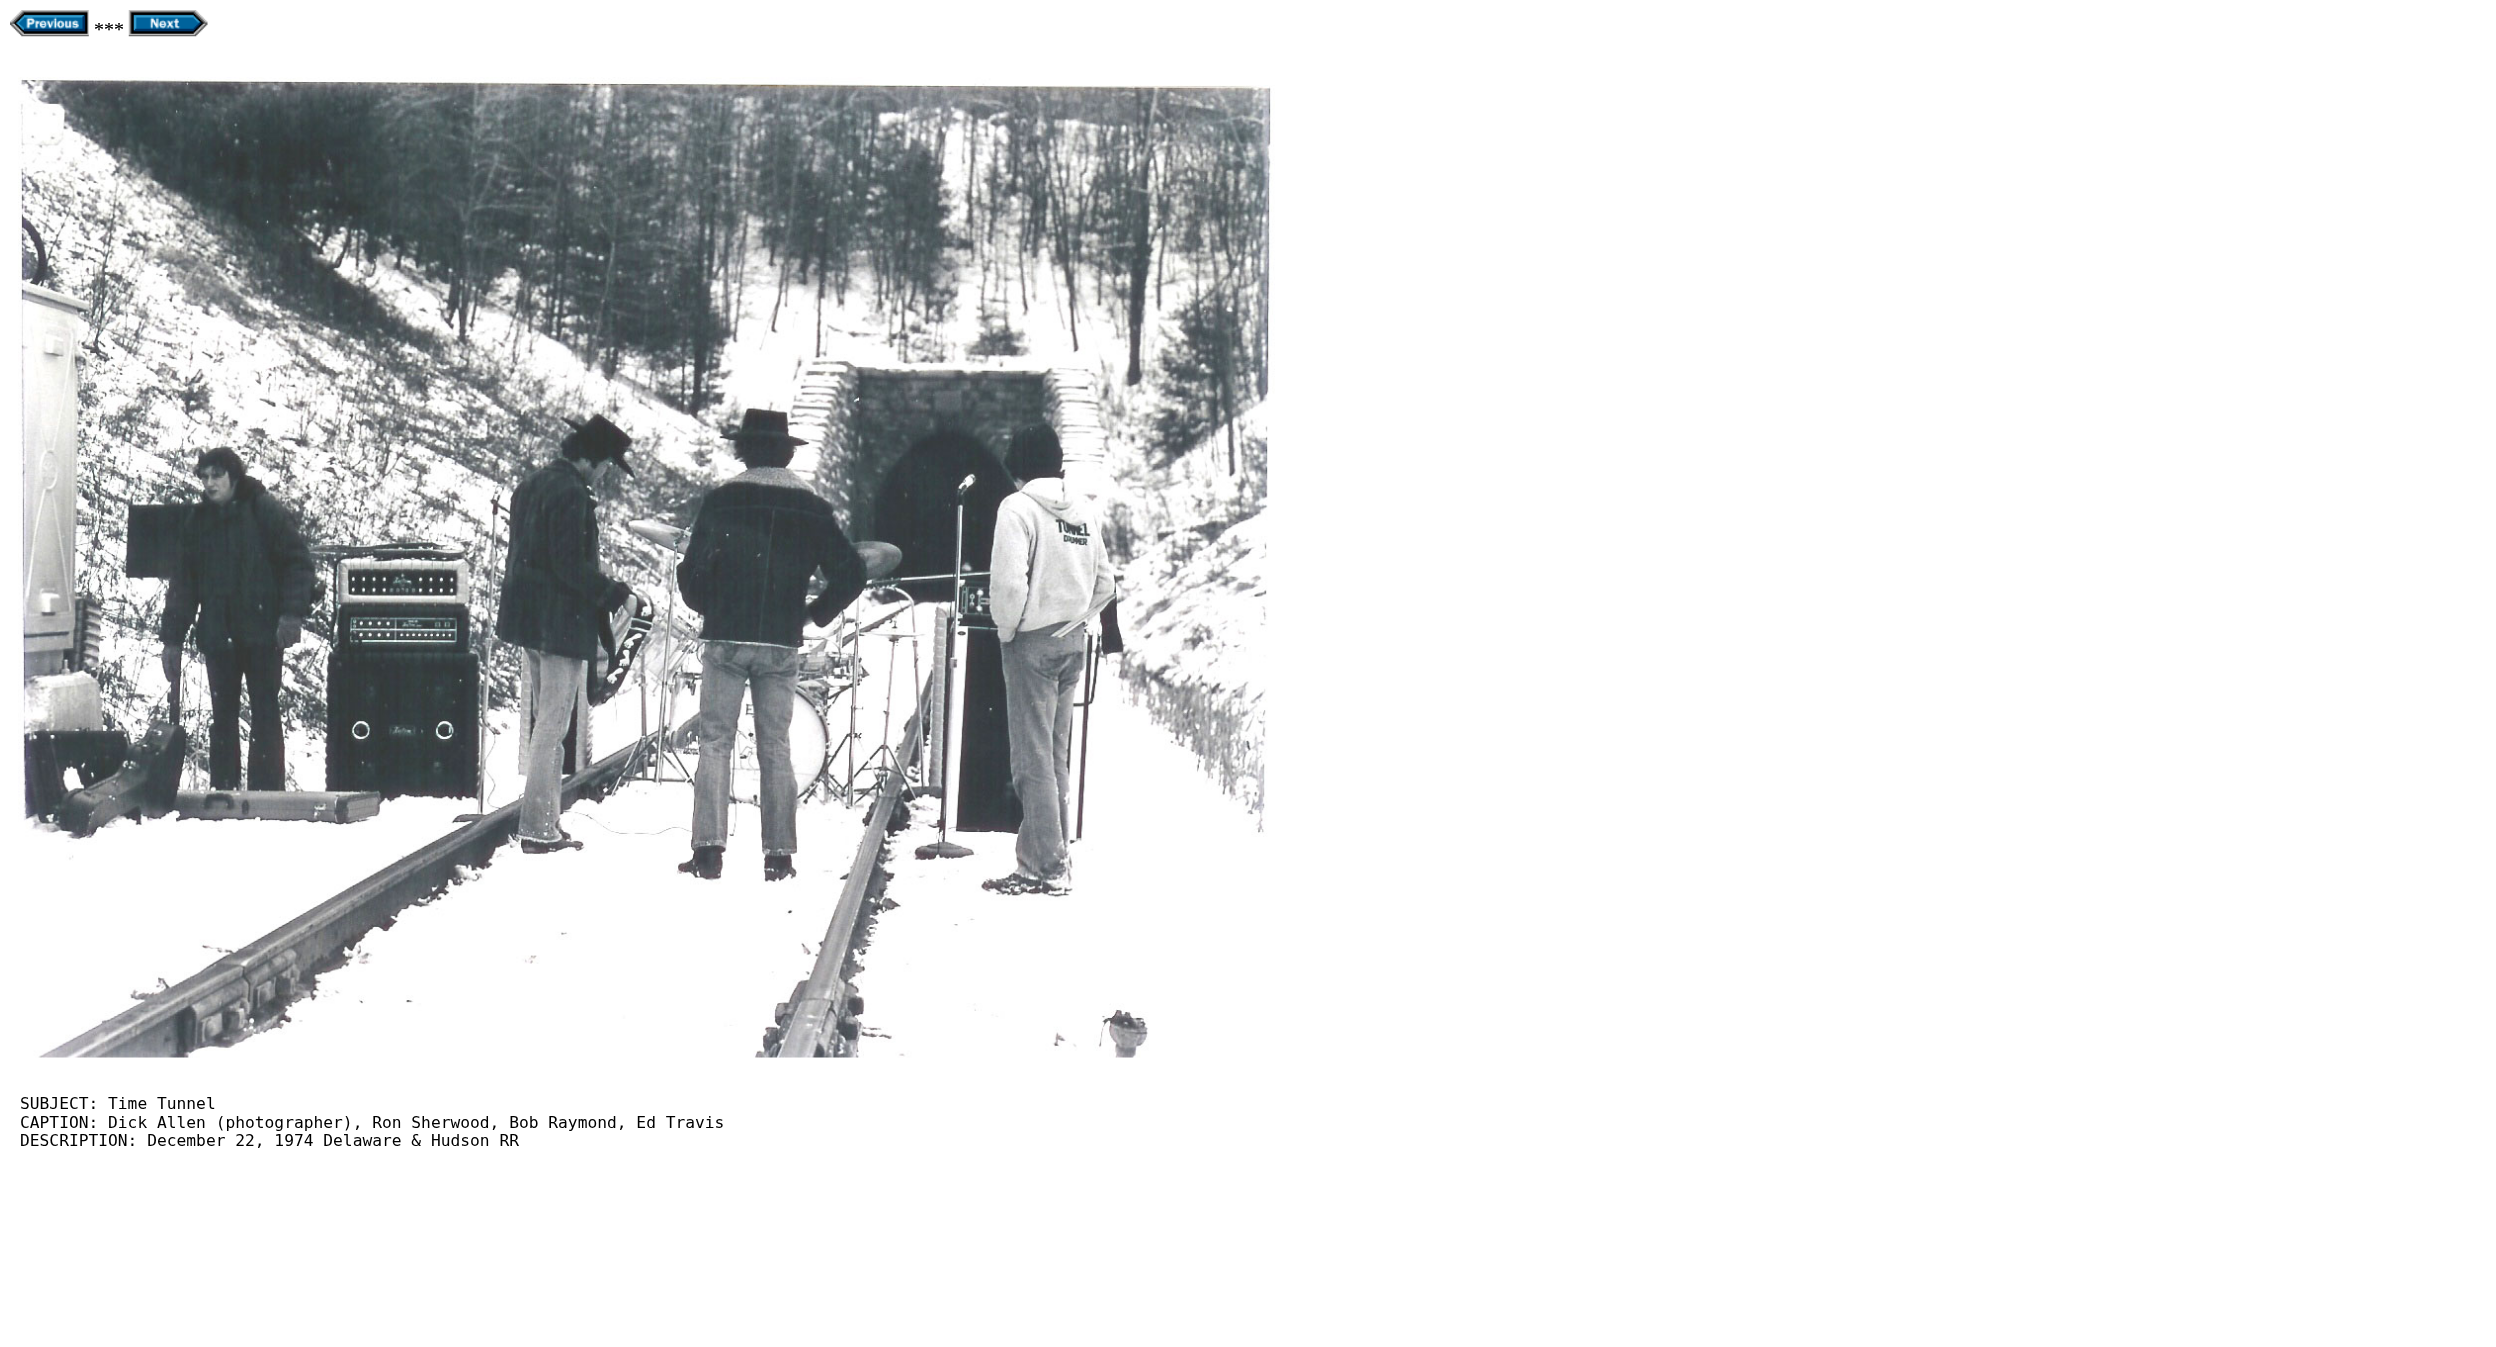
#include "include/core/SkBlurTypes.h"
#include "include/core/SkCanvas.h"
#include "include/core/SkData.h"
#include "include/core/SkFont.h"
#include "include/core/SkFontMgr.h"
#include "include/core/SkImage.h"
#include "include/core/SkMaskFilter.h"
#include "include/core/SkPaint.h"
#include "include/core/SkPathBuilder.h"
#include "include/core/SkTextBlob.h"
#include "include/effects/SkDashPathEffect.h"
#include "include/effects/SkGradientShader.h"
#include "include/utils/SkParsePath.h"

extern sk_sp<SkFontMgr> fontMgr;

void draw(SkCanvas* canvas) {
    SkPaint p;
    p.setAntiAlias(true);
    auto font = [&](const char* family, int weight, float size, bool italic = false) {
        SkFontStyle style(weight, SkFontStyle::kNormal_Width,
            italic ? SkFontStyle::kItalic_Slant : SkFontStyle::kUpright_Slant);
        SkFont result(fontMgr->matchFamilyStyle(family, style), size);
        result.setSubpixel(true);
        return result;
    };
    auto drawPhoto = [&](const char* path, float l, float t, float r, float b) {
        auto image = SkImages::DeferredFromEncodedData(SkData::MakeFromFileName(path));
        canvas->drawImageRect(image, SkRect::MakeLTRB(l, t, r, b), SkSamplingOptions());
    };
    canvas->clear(0xFFFFFFFF);
    drawPhoto("media/1.png", 10, 10, 89, 37);
    auto font1 = font("Liberation Serif", 400, 20);
    p.setColor(0xFF000000);
    canvas->drawString("***", 94, 36, font1, p);
    drawPhoto("media/2.png", 128, 10, 208, 37);
    drawPhoto("media/3.png", 18, 77, 1275, 1058);
    drawPhoto("media/4.png", 21, 1097, 723, 1148);
}
